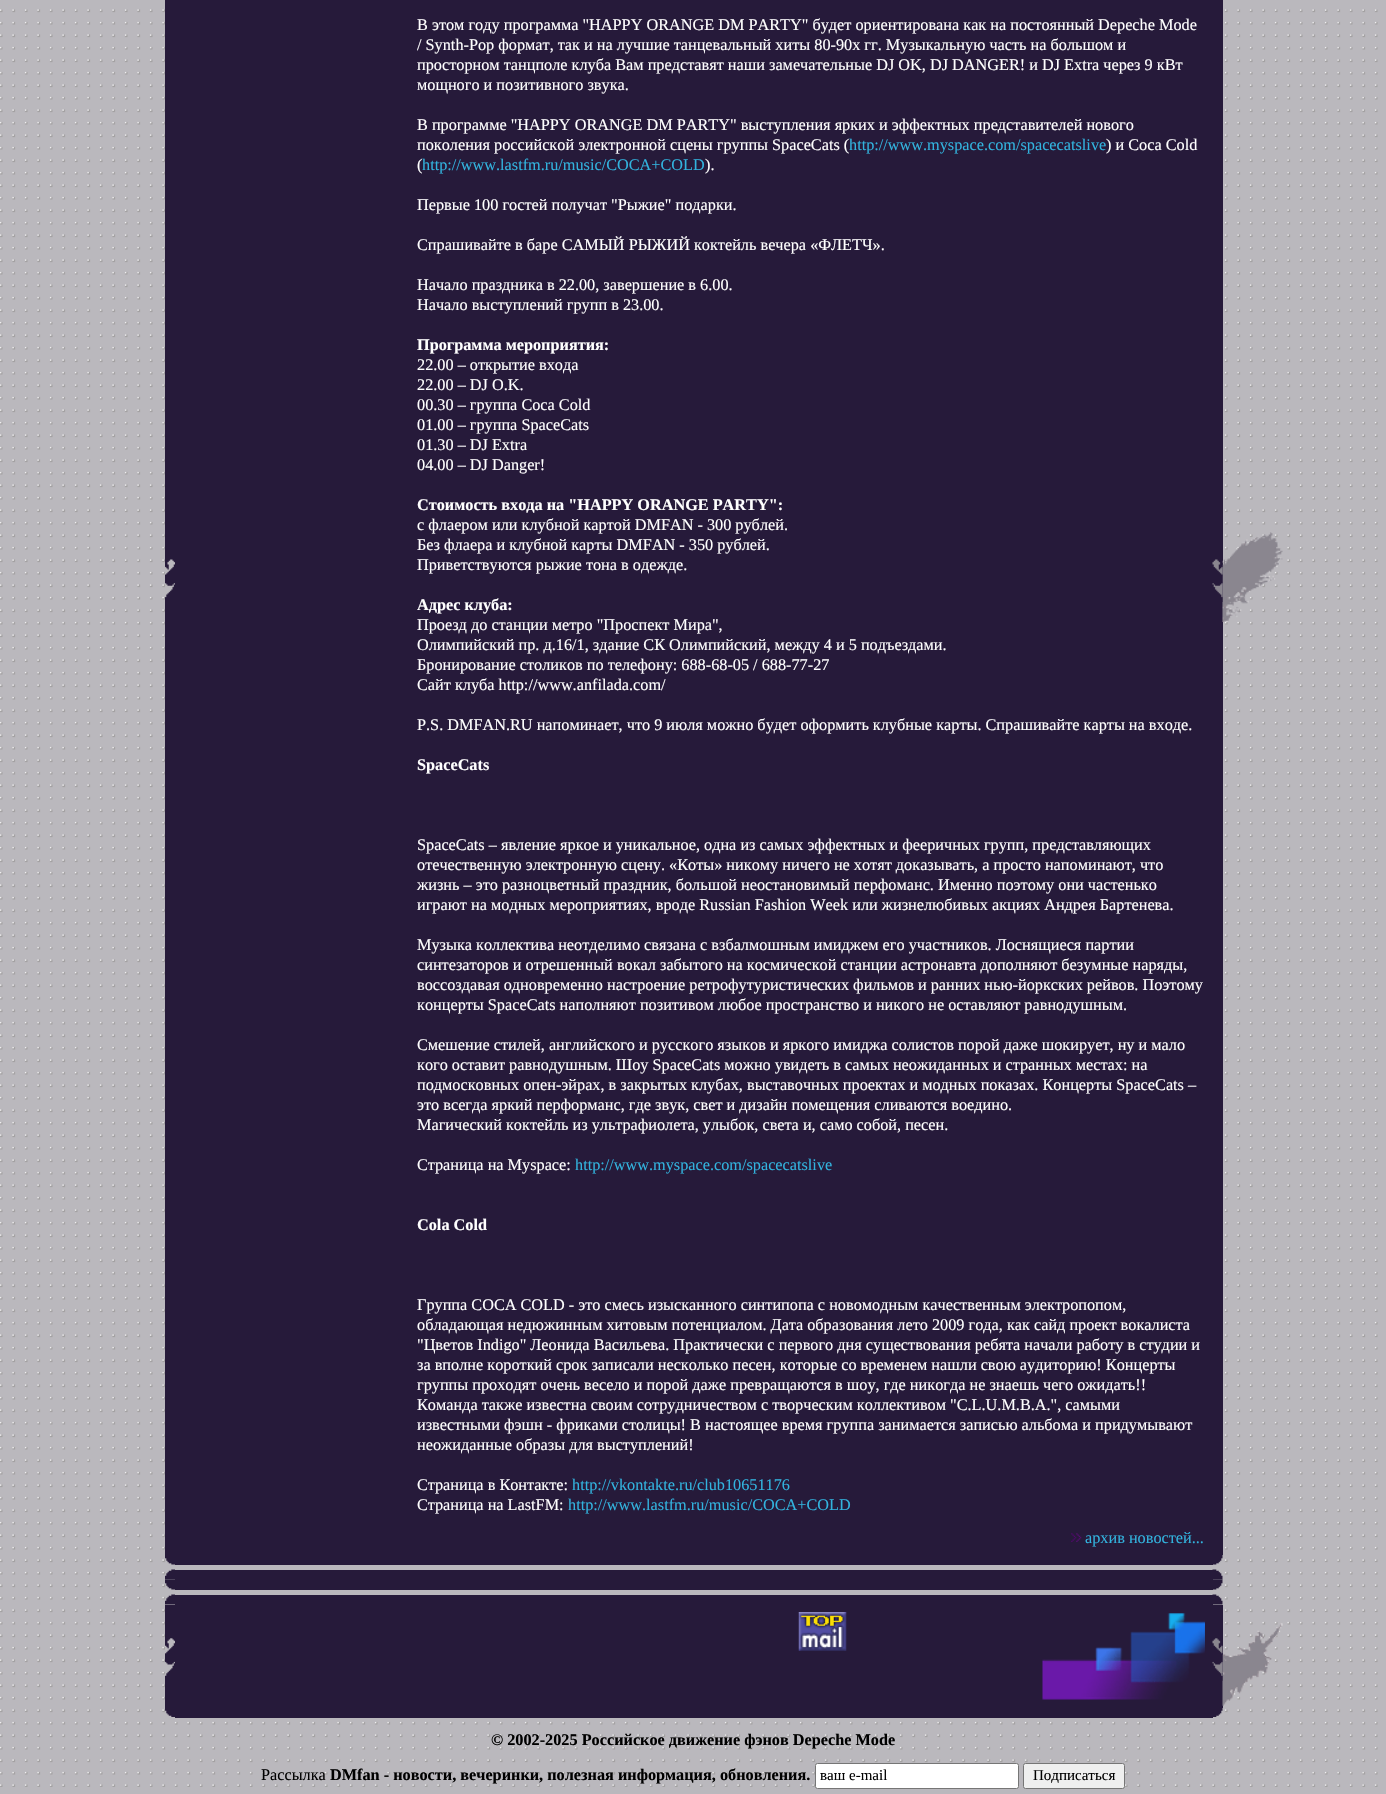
#include "include/core/SkBlurTypes.h"
#include "include/core/SkCanvas.h"
#include "include/core/SkData.h"
#include "include/core/SkFont.h"
#include "include/core/SkFontMgr.h"
#include "include/core/SkImage.h"
#include "include/core/SkMaskFilter.h"
#include "include/core/SkPaint.h"
#include "include/core/SkPathBuilder.h"
#include "include/core/SkTextBlob.h"
#include "include/effects/SkDashPathEffect.h"
#include "include/effects/SkGradientShader.h"
#include "include/utils/SkParsePath.h"

extern sk_sp<SkFontMgr> fontMgr;

void draw(SkCanvas* canvas) {
    SkPaint p;
    p.setAntiAlias(true);
    auto font = [&](const char* family, int weight, float size, bool italic = false) {
        SkFontStyle style(weight, SkFontStyle::kNormal_Width,
            italic ? SkFontStyle::kItalic_Slant : SkFontStyle::kUpright_Slant);
        SkFont result(fontMgr->matchFamilyStyle(family, style), size);
        result.setSubpixel(true);
        return result;
    };
    auto drawPhoto = [&](const char* path, float l, float t, float r, float b) {
        auto image = SkImages::DeferredFromEncodedData(SkData::MakeFromFileName(path));
        canvas->drawImageRect(image, SkRect::MakeLTRB(l, t, r, b), SkSamplingOptions());
    };
    canvas->clear(0xFFBAB8BD);
    drawPhoto("media/1.png", 0, 9, 1378, 1787);
    p.setColor(0xFF261A3A);
    canvas->drawRect(SkRect::MakeLTRB(165, 0, 1223, 1555), p);
    drawPhoto("media/2.png", 165, 559, 175, 598);
    auto font1 = font("Liberation Serif", 400, 16.25f);
    p.setColor(0xFFFFFFFF);
    {
        const struct { const char* s; float x, y; } items[] = {
            {"В этом году программа \"HAPPY ORANGE DM PARTY\" будет ориентирована как на постоянный Depeche Mode", 417, 30},
            {"/ Synth-Pop формат, так и на лучшие танцевальный хиты 80-90х гг. Музыкальную часть на большом и", 417, 50},
            {"просторном танцполе клуба Вам представят наши замечательные DJ OK, DJ DANGER! и DJ Extra через 9 кВт", 417, 70},
            {"мощного и позитивного звука.", 417, 90},
            {"В программе \"HAPPY ORANGE DM PARTY\" выступления ярких и эффектных представителей нового", 417, 130},
            {"поколения российской электронной сцены группы SpaceCats (", 417, 150},
        };
        for (auto [s, x, y] : items) {
            canvas->drawString(s, x, y, font1, p);
        }
    }
    p.setColor(0xFF32B3DE);
    canvas->drawString("http://www.myspace.com/spacecatslive", 849, 150, font1, p);
    p.setColor(0xFFFFFFFF);
    canvas->drawString(") и Coca Cold", 1106, 150, font1, p);
    canvas->drawString("(", 417, 170, font1, p);
    p.setColor(0xFF32B3DE);
    canvas->drawString("http://www.lastfm.ru/music/COCA+COLD", 422, 170, font1, p);
    p.setColor(0xFFFFFFFF);
    {
        const struct { const char* s; float x, y; } items[] = {
            {").", 705, 170},
            {"Первые 100 гостей получат \"Рыжие\" подарки.", 417, 210},
            {"Спрашивайте в баре САМЫЙ РЫЖИЙ коктейль вечера «ФЛЕТЧ».", 417, 250},
            {"Начало праздника в 22.00, завершение в 6.00.", 417, 290},
            {"Начало выступлений групп в 23.00.", 417, 310},
        };
        for (auto [s, x, y] : items) {
            canvas->drawString(s, x, y, font1, p);
        }
    }
    auto font2 = font("Liberation Serif", 700, 16.25f);
    canvas->drawString("Программа мероприятия:", 417, 350, font2, p);
    {
        const struct { const char* s; float x, y; } items[] = {
            {"22.00 – открытие входа", 417, 370},
            {"22.00 – DJ O.K.", 417, 390},
            {"00.30 – группа Coсa Cold", 417, 410},
            {"01.00 – группа SpaceCats", 417, 430},
            {"01.30 – DJ Extra", 417, 450},
            {"04.00 – DJ Danger!", 417, 470},
        };
        for (auto [s, x, y] : items) {
            canvas->drawString(s, x, y, font1, p);
        }
    }
    canvas->drawString("Стоимость входа на \"HAPPY ORANGE PARTY\":", 417, 510, font2, p);
    {
        const struct { const char* s; float x, y; } items[] = {
            {"с флаером или клубной картой DMFAN - 300 рублей.", 417, 530},
            {"Без флаера и клубной карты DMFAN - 350 рублей.", 417, 550},
            {"Приветствуются рыжие тона в одежде.", 417, 570},
        };
        for (auto [s, x, y] : items) {
            canvas->drawString(s, x, y, font1, p);
        }
    }
    canvas->drawString("Адрес клуба:", 417, 610, font2, p);
    {
        const struct { const char* s; float x, y; } items[] = {
            {"Проезд до станции метро \"Проспект Мира\",", 417, 630},
            {"Олимпийский пр. д.16/1, здание СК Олимпийский, между 4 и 5 подъездами.", 417, 650},
            {"Бронирование столиков по телефону: 688-68-05 / 688-77-27", 417, 670},
            {"Сайт клуба http://www.anfilada.com/", 417, 690},
            {"P.S. DMFAN.RU напоминает, что 9 июля можно будет оформить клубные карты. Спрашивайте карты на входе.", 417, 730},
        };
        for (auto [s, x, y] : items) {
            canvas->drawString(s, x, y, font1, p);
        }
    }
    canvas->drawString("SpaceCats", 417, 770, font2, p);
    {
        const struct { const char* s; float x, y; } items[] = {
            {"SpaceCats – явление яркое и уникальное, одна из самых эффектных и фееричных групп, представляющих", 417, 850},
            {"отечественную электронную сцену. «Коты» никому ничего не хотят доказывать, а просто напоминают, что", 417, 870},
            {"жизнь – это разноцветный праздник, большой неостановимый перфоманс. Именно поэтому они частенько", 417, 890},
            {"играют на модных мероприятиях, вроде Russian Fashion Week или жизнелюбивых акциях Андрея Бартенева.", 417, 910},
            {"Музыка коллектива неотделимо связана с взбалмошным имиджем его участников. Лоснящиеся партии", 417, 950},
            {"синтезаторов и отрешенный вокал забытого на космической станции астронавта дополняют безумные наряды,", 417, 970},
            {"воссоздавая одновременно настроение ретрофутуристических фильмов и ранних нью-йоркских рейвов. Поэтому", 417, 990},
            {"концерты SpaceCats наполняют позитивом любое пространство и никого не оставляют равнодушным.", 417, 1010},
            {"Смешение стилей, английского и русского языков и яркого имиджа солистов порой даже шокирует, ну и мало", 417, 1050},
            {"кого оставит равнодушным. Шоу SpaceCats можно увидеть в самых неожиданных и странных местах: на", 417, 1070},
            {"подмосковных опен-эйрах, в закрытых клубах, выставочных проектах и модных показах. Концерты SpaceCats –", 417, 1090},
            {"это всегда яркий перформанс, где звук, свет и дизайн помещения сливаются воедино.", 417, 1110},
            {"Магический коктейль из ультрафиолета, улыбок, света и, само собой, песен.", 417, 1130},
            {"Страница на Myspace:", 417, 1170},
        };
        for (auto [s, x, y] : items) {
            canvas->drawString(s, x, y, font1, p);
        }
    }
    p.setColor(0xFF32B3DE);
    canvas->drawString("http://www.myspace.com/spacecatslive", 575, 1170, font1, p);
    p.setColor(0xFFFFFFFF);
    canvas->drawString("Cola Cold", 417, 1230, font2, p);
    {
        const struct { const char* s; float x, y; } items[] = {
            {"Группа COCA COLD - это смесь изысканного синтипопа с новомодным качественным электропопом,", 417, 1310},
            {"обладающая недюжинным хитовым потенциалом. Дата образования лето 2009 года, как сайд проект вокалиста", 417, 1330},
            {"\"Цветов Indigo\" Леонида Васильева. Практически с первого дня существования ребята начали работу в студии и", 417, 1350},
            {"за вполне короткий срок записали несколько песен, которые со временем нашли свою аудиторию! Концерты", 417, 1370},
            {"группы проходят очень весело и порой даже превращаются в шоу, где никогда не знаешь чего ожидать!!", 417, 1390},
            {"Команда также известна своим сотрудничеством с творческим коллективом \"C.L.U.M.B.A.\", самыми", 417, 1410},
            {"известными фэшн - фриками столицы! В настоящее время группа занимается записью альбома и придумывают", 417, 1430},
            {"неожиданные образы для выступлений!", 417, 1450},
            {"Страница в Контакте:", 417, 1490},
        };
        for (auto [s, x, y] : items) {
            canvas->drawString(s, x, y, font1, p);
        }
    }
    p.setColor(0xFF32B3DE);
    canvas->drawString("http://vkontakte.ru/club10651176", 572, 1490, font1, p);
    p.setColor(0xFFFFFFFF);
    canvas->drawString("Страница на LastFM:", 417, 1510, font1, p);
    p.setColor(0xFF32B3DE);
    canvas->drawString("http://www.lastfm.ru/music/COCA+COLD", 568, 1510, font1, p);
    drawPhoto("media/3.png", 1071, 1533, 1082, 1542);
    canvas->drawString("архив новостей...", 1085, 1543, font1, p);
    drawPhoto("media/5.png", 1222, 532, 1283, 622);
    drawPhoto("media/4.png", 1212, 559, 1223, 602);
    drawPhoto("media/6.png", 165, 1555, 175, 1565);
    p.setColor(0xFF261A3A);
    canvas->drawRect(SkRect::MakeLTRB(175, 1555, 1213, 1565), p);
    drawPhoto("media/7.png", 1213, 1555, 1223, 1565);
    drawPhoto("media/8.png", 165, 1569, 175, 1580);
    canvas->drawRect(SkRect::MakeLTRB(175, 1570, 1213, 1590), p);
    drawPhoto("media/9.png", 1212, 1569, 1223, 1580);
    drawPhoto("media/10.png", 165, 1579, 175, 1590);
    drawPhoto("media/11.png", 1213, 1579, 1223, 1590);
    drawPhoto("media/8.png", 165, 1594, 175, 1605);
    canvas->drawRect(SkRect::MakeLTRB(175, 1595, 1213, 1605), p);
    drawPhoto("media/9.png", 1212, 1594, 1223, 1605);
    canvas->drawRect(SkRect::MakeLTRB(165, 1605, 175, 1708), p);
    drawPhoto("media/12.png", 165, 1638, 175, 1676);
    canvas->drawRect(SkRect::MakeLTRB(175, 1605, 1223, 1708), p);
    drawPhoto("media/14.png", 1222, 1623, 1283, 1706);
    drawPhoto("media/13.png", 1212, 1638, 1223, 1681);
    drawPhoto("media/15.png", 798, 1612, 847, 1651);
    drawPhoto("media/16.png", 1042, 1613, 1205, 1700);
    drawPhoto("media/17.png", 165, 1708, 175, 1717);
    canvas->drawRect(SkRect::MakeLTRB(175, 1708, 1213, 1718), p);
    drawPhoto("media/18.png", 1213, 1708, 1223, 1717);
    p.setColor(0xFF000000);
    canvas->drawString("© 2002-2025 Российское движение фэнов Depeche Mode", 491, 1745, font2, p);
    canvas->drawString("Рассылка", 261, 1780, font1, p);
    canvas->drawString("DMfan - новости, вечеринки, полезная информация, обновления.", 330, 1780, font2, p);
    p.setColor(0xFFFFFFFF);
    canvas->drawRoundRect(SkRect::MakeLTRB(815.5f, 1763.5f, 1018.5f, 1788.5f), 2, 2, p);
    p.setStyle(SkPaint::kStroke_Style);
    p.setStrokeWidth(1);
    p.setColor(0xFF767676);
    canvas->drawRoundRect(SkRect::MakeLTRB(815.5f, 1763.5f, 1018.5f, 1788.5f), 2, 2, p);
    auto font3 = font("Liberation Serif", 400, 15);
    p.setStyle(SkPaint::kFill_Style);
    p.setColor(0xFF000000);
    canvas->drawString("ваш e-mail", 820, 1780, font3, p);
    p.setColor(0xFFEFEFEF);
    canvas->drawRoundRect(SkRect::MakeLTRB(1023.5f, 1763.5f, 1124.5f, 1788.5f), 2, 2, p);
    p.setStyle(SkPaint::kStroke_Style);
    p.setColor(0xFF767676);
    canvas->drawRoundRect(SkRect::MakeLTRB(1023.5f, 1763.5f, 1124.5f, 1788.5f), 2, 2, p);
    p.setStyle(SkPaint::kFill_Style);
    p.setColor(0xFF000000);
    canvas->drawString("Подписаться", 1033, 1780, font3, p);
}
